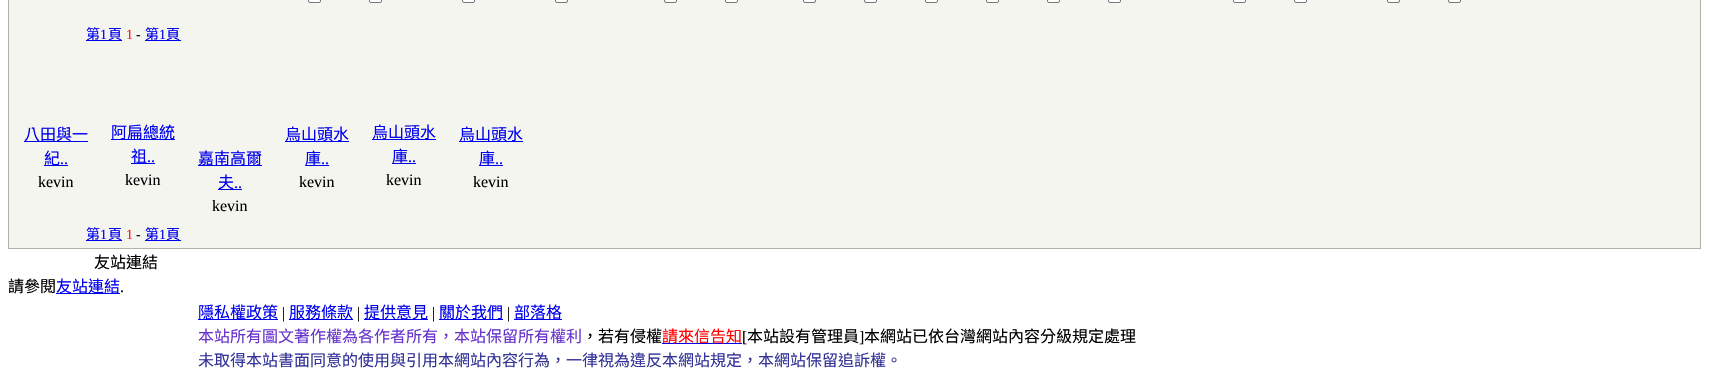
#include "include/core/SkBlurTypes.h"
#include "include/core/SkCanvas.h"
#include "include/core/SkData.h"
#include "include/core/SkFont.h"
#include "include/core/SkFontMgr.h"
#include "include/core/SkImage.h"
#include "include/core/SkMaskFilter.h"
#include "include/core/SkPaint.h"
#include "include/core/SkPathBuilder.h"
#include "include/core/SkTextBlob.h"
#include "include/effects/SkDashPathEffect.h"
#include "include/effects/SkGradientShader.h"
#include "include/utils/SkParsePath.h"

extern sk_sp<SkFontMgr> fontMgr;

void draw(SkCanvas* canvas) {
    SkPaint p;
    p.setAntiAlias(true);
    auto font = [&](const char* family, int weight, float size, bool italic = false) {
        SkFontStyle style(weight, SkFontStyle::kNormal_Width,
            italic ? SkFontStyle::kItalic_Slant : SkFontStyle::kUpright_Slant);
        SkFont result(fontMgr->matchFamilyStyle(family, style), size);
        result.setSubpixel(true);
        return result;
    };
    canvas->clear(0xFFFFFFFF);
    p.setColor(0xFFF5F5F0);
    canvas->drawRect(SkRect::MakeLTRB(8.5f, -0.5f, 1700.5f, 248.5f), p);
    p.setStyle(SkPaint::kStroke_Style);
    p.setStrokeWidth(1);
    p.setColor(0xFFB4B0A7);
    canvas->drawRect(SkRect::MakeLTRB(8.5f, -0.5f, 1700.5f, 248.5f), p);
    p.setStyle(SkPaint::kFill_Style);
    p.setColor(0xFFFFFFFF);
    canvas->drawRoundRect(SkRect::MakeLTRB(308.5f, -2.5f, 320.5f, 2.5f), 1.5f, 1.5f, p);
    p.setStyle(SkPaint::kStroke_Style);
    p.setColor(0xFF767676);
    canvas->drawRoundRect(SkRect::MakeLTRB(308.5f, -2.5f, 320.5f, 2.5f), 1.5f, 1.5f, p);
    p.setStyle(SkPaint::kFill_Style);
    p.setColor(0xFFFFFFFF);
    canvas->drawRoundRect(SkRect::MakeLTRB(369.5f, -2.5f, 381.5f, 2.5f), 1.5f, 1.5f, p);
    p.setStyle(SkPaint::kStroke_Style);
    p.setColor(0xFF767676);
    canvas->drawRoundRect(SkRect::MakeLTRB(369.5f, -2.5f, 381.5f, 2.5f), 1.5f, 1.5f, p);
    p.setStyle(SkPaint::kFill_Style);
    p.setColor(0xFFFFFFFF);
    canvas->drawRoundRect(SkRect::MakeLTRB(462.5f, -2.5f, 474.5f, 2.5f), 1.5f, 1.5f, p);
    p.setStyle(SkPaint::kStroke_Style);
    p.setColor(0xFF767676);
    canvas->drawRoundRect(SkRect::MakeLTRB(462.5f, -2.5f, 474.5f, 2.5f), 1.5f, 1.5f, p);
    p.setStyle(SkPaint::kFill_Style);
    p.setColor(0xFFFFFFFF);
    canvas->drawRoundRect(SkRect::MakeLTRB(555.5f, -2.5f, 567.5f, 2.5f), 1.5f, 1.5f, p);
    p.setStyle(SkPaint::kStroke_Style);
    p.setColor(0xFF767676);
    canvas->drawRoundRect(SkRect::MakeLTRB(555.5f, -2.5f, 567.5f, 2.5f), 1.5f, 1.5f, p);
    p.setStyle(SkPaint::kFill_Style);
    p.setColor(0xFFFFFFFF);
    canvas->drawRoundRect(SkRect::MakeLTRB(664.5f, -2.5f, 676.5f, 2.5f), 1.5f, 1.5f, p);
    p.setStyle(SkPaint::kStroke_Style);
    p.setColor(0xFF767676);
    canvas->drawRoundRect(SkRect::MakeLTRB(664.5f, -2.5f, 676.5f, 2.5f), 1.5f, 1.5f, p);
    p.setStyle(SkPaint::kFill_Style);
    p.setColor(0xFFFFFFFF);
    canvas->drawRoundRect(SkRect::MakeLTRB(725.5f, -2.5f, 737.5f, 2.5f), 1.5f, 1.5f, p);
    p.setStyle(SkPaint::kStroke_Style);
    p.setColor(0xFF767676);
    canvas->drawRoundRect(SkRect::MakeLTRB(725.5f, -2.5f, 737.5f, 2.5f), 1.5f, 1.5f, p);
    p.setStyle(SkPaint::kFill_Style);
    p.setColor(0xFFFFFFFF);
    canvas->drawRoundRect(SkRect::MakeLTRB(803.5f, -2.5f, 815.5f, 2.5f), 1.5f, 1.5f, p);
    p.setStyle(SkPaint::kStroke_Style);
    p.setColor(0xFF767676);
    canvas->drawRoundRect(SkRect::MakeLTRB(803.5f, -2.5f, 815.5f, 2.5f), 1.5f, 1.5f, p);
    p.setStyle(SkPaint::kFill_Style);
    p.setColor(0xFFFFFFFF);
    canvas->drawRoundRect(SkRect::MakeLTRB(864.5f, -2.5f, 876.5f, 2.5f), 1.5f, 1.5f, p);
    p.setStyle(SkPaint::kStroke_Style);
    p.setColor(0xFF767676);
    canvas->drawRoundRect(SkRect::MakeLTRB(864.5f, -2.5f, 876.5f, 2.5f), 1.5f, 1.5f, p);
    p.setStyle(SkPaint::kFill_Style);
    p.setColor(0xFFFFFFFF);
    canvas->drawRoundRect(SkRect::MakeLTRB(925.5f, -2.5f, 937.5f, 2.5f), 1.5f, 1.5f, p);
    p.setStyle(SkPaint::kStroke_Style);
    p.setColor(0xFF767676);
    canvas->drawRoundRect(SkRect::MakeLTRB(925.5f, -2.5f, 937.5f, 2.5f), 1.5f, 1.5f, p);
    p.setStyle(SkPaint::kFill_Style);
    p.setColor(0xFFFFFFFF);
    canvas->drawRoundRect(SkRect::MakeLTRB(986.5f, -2.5f, 998.5f, 2.5f), 1.5f, 1.5f, p);
    p.setStyle(SkPaint::kStroke_Style);
    p.setColor(0xFF767676);
    canvas->drawRoundRect(SkRect::MakeLTRB(986.5f, -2.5f, 998.5f, 2.5f), 1.5f, 1.5f, p);
    p.setStyle(SkPaint::kFill_Style);
    p.setColor(0xFFFFFFFF);
    canvas->drawRoundRect(SkRect::MakeLTRB(1047.5f, -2.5f, 1059.5f, 2.5f), 1.5f, 1.5f, p);
    p.setStyle(SkPaint::kStroke_Style);
    p.setColor(0xFF767676);
    canvas->drawRoundRect(SkRect::MakeLTRB(1047.5f, -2.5f, 1059.5f, 2.5f), 1.5f, 1.5f, p);
    p.setStyle(SkPaint::kFill_Style);
    p.setColor(0xFFFFFFFF);
    canvas->drawRoundRect(SkRect::MakeLTRB(1108.5f, -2.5f, 1120.5f, 2.5f), 1.5f, 1.5f, p);
    p.setStyle(SkPaint::kStroke_Style);
    p.setColor(0xFF767676);
    canvas->drawRoundRect(SkRect::MakeLTRB(1108.5f, -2.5f, 1120.5f, 2.5f), 1.5f, 1.5f, p);
    p.setStyle(SkPaint::kFill_Style);
    p.setColor(0xFFFFFFFF);
    canvas->drawRoundRect(SkRect::MakeLTRB(1233.5f, -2.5f, 1245.5f, 2.5f), 1.5f, 1.5f, p);
    p.setStyle(SkPaint::kStroke_Style);
    p.setColor(0xFF767676);
    canvas->drawRoundRect(SkRect::MakeLTRB(1233.5f, -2.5f, 1245.5f, 2.5f), 1.5f, 1.5f, p);
    p.setStyle(SkPaint::kFill_Style);
    p.setColor(0xFFFFFFFF);
    canvas->drawRoundRect(SkRect::MakeLTRB(1294.5f, -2.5f, 1306.5f, 2.5f), 1.5f, 1.5f, p);
    p.setStyle(SkPaint::kStroke_Style);
    p.setColor(0xFF767676);
    canvas->drawRoundRect(SkRect::MakeLTRB(1294.5f, -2.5f, 1306.5f, 2.5f), 1.5f, 1.5f, p);
    p.setStyle(SkPaint::kFill_Style);
    p.setColor(0xFFFFFFFF);
    canvas->drawRoundRect(SkRect::MakeLTRB(1387.5f, -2.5f, 1399.5f, 2.5f), 1.5f, 1.5f, p);
    p.setStyle(SkPaint::kStroke_Style);
    p.setColor(0xFF767676);
    canvas->drawRoundRect(SkRect::MakeLTRB(1387.5f, -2.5f, 1399.5f, 2.5f), 1.5f, 1.5f, p);
    p.setStyle(SkPaint::kFill_Style);
    p.setColor(0xFFFFFFFF);
    canvas->drawRoundRect(SkRect::MakeLTRB(1448.5f, -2.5f, 1460.5f, 2.5f), 1.5f, 1.5f, p);
    p.setStyle(SkPaint::kStroke_Style);
    p.setColor(0xFF767676);
    canvas->drawRoundRect(SkRect::MakeLTRB(1448.5f, -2.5f, 1460.5f, 2.5f), 1.5f, 1.5f, p);
    p.setStyle(SkPaint::kFill_Style);
    p.setColor(0xFF0000EE);
    canvas->drawRect(SkRect::MakeLTRB(86, 40, 122, 41), p);
    auto font1 = font("Noto Sans CJK TC", 400, 14);
    canvas->drawString("第", 86, 39, font1, p);
    auto font2 = font("Liberation Serif", 400, 14);
    canvas->drawString("1", 100, 39, font2, p);
    canvas->drawString("頁", 108, 39, font1, p);
    p.setColor(0xFFFF1010);
    canvas->drawString("1", 126, 39, font2, p);
    p.setColor(0xFF000000);
    canvas->drawString("-", 136, 39, font2, p);
    p.setColor(0xFF0000EE);
    canvas->drawRect(SkRect::MakeLTRB(145, 40, 181, 41), p);
    canvas->drawString("第", 145, 39, font1, p);
    canvas->drawString("1", 159, 39, font2, p);
    canvas->drawString("頁", 166, 39, font1, p);
    canvas->drawRect(SkRect::MakeLTRB(24, 141, 88, 142), p);
    auto font3 = font("Noto Sans CJK TC", 400, 16);
    canvas->drawString("八田與一", 24, 140, font3, p);
    canvas->drawRect(SkRect::MakeLTRB(44, 165, 68, 166), p);
    canvas->drawString("紀", 44, 164, font3, p);
    auto font4 = font("Liberation Serif", 400, 16);
    canvas->drawString("..", 60, 164, font4, p);
    p.setColor(0xFF000000);
    canvas->drawString("kevin", 38, 187, font4, p);
    p.setColor(0xFF0000EE);
    canvas->drawRect(SkRect::MakeLTRB(111, 139, 175, 140), p);
    canvas->drawString("阿扁總統", 111, 138, font3, p);
    canvas->drawRect(SkRect::MakeLTRB(131, 163, 155, 164), p);
    canvas->drawString("祖", 131, 162, font3, p);
    canvas->drawString("..", 147, 162, font4, p);
    p.setColor(0xFF000000);
    canvas->drawString("kevin", 125, 185, font4, p);
    p.setColor(0xFF0000EE);
    canvas->drawRect(SkRect::MakeLTRB(198, 165, 262, 166), p);
    canvas->drawString("嘉南高爾", 198, 164, font3, p);
    canvas->drawRect(SkRect::MakeLTRB(218, 189, 242, 190), p);
    canvas->drawString("夫", 218, 188, font3, p);
    canvas->drawString("..", 234, 188, font4, p);
    p.setColor(0xFF000000);
    canvas->drawString("kevin", 212, 211, font4, p);
    p.setColor(0xFF0000EE);
    canvas->drawRect(SkRect::MakeLTRB(285, 141, 349, 142), p);
    canvas->drawString("烏山頭水", 285, 140, font3, p);
    canvas->drawRect(SkRect::MakeLTRB(305, 165, 329, 166), p);
    canvas->drawString("庫", 305, 164, font3, p);
    canvas->drawString("..", 321, 164, font4, p);
    p.setColor(0xFF000000);
    canvas->drawString("kevin", 299, 187, font4, p);
    p.setColor(0xFF0000EE);
    canvas->drawRect(SkRect::MakeLTRB(372, 139, 436, 140), p);
    canvas->drawString("烏山頭水", 372, 138, font3, p);
    canvas->drawRect(SkRect::MakeLTRB(392, 163, 416, 164), p);
    canvas->drawString("庫", 392, 162, font3, p);
    canvas->drawString("..", 408, 162, font4, p);
    p.setColor(0xFF000000);
    canvas->drawString("kevin", 386, 185, font4, p);
    p.setColor(0xFF0000EE);
    canvas->drawRect(SkRect::MakeLTRB(459, 141, 523, 142), p);
    canvas->drawString("烏山頭水", 459, 140, font3, p);
    canvas->drawRect(SkRect::MakeLTRB(479, 165, 503, 166), p);
    canvas->drawString("庫", 479, 164, font3, p);
    canvas->drawString("..", 495, 164, font4, p);
    p.setColor(0xFF000000);
    canvas->drawString("kevin", 473, 187, font4, p);
    p.setColor(0xFF0000EE);
    canvas->drawRect(SkRect::MakeLTRB(86, 240, 122, 241), p);
    canvas->drawString("第", 86, 239, font1, p);
    canvas->drawString("1", 100, 239, font2, p);
    canvas->drawString("頁", 108, 239, font1, p);
    p.setColor(0xFFFF1010);
    canvas->drawString("1", 126, 239, font2, p);
    p.setColor(0xFF000000);
    canvas->drawString("-", 136, 239, font2, p);
    p.setColor(0xFF0000EE);
    canvas->drawRect(SkRect::MakeLTRB(145, 240, 181, 241), p);
    canvas->drawString("第", 145, 239, font1, p);
    canvas->drawString("1", 159, 239, font2, p);
    canvas->drawString("頁", 166, 239, font1, p);
    p.setColor(0xFF000000);
    canvas->drawString("友站連結", 94, 268, font3, p);
    canvas->drawString("請參閱", 8, 292, font3, p);
    p.setColor(0xFF0000EE);
    canvas->drawRect(SkRect::MakeLTRB(56, 293, 120, 294), p);
    canvas->drawString("友站連結", 56, 292, font3, p);
    p.setColor(0xFF000000);
    canvas->drawString(".", 120, 292, font4, p);
    p.setColor(0xFF0000EE);
    canvas->drawRect(SkRect::MakeLTRB(198, 319, 278, 320), p);
    canvas->drawString("隱私權政策", 198, 318, font3, p);
    p.setColor(0xFF000000);
    canvas->drawString("|", 282, 318, font4, p);
    p.setColor(0xFF0000EE);
    canvas->drawRect(SkRect::MakeLTRB(289, 319, 353, 320), p);
    canvas->drawString("服務條款", 289, 318, font3, p);
    p.setColor(0xFF000000);
    canvas->drawString("|", 357, 318, font4, p);
    p.setColor(0xFF0000EE);
    canvas->drawRect(SkRect::MakeLTRB(364, 319, 428, 320), p);
    canvas->drawString("提供意見", 364, 318, font3, p);
    p.setColor(0xFF000000);
    canvas->drawString("|", 432, 318, font4, p);
    p.setColor(0xFF0000EE);
    canvas->drawRect(SkRect::MakeLTRB(439, 319, 503, 320), p);
    canvas->drawString("關於我們", 439, 318, font3, p);
    p.setColor(0xFF000000);
    canvas->drawString("|", 507, 318, font4, p);
    p.setColor(0xFF0000EE);
    canvas->drawRect(SkRect::MakeLTRB(514, 319, 562, 320), p);
    canvas->drawString("部落格", 514, 318, font3, p);
    p.setColor(0xFF6633CC);
    canvas->drawString("本站所有圖文著作權為各作者所有，本站保留所有權利", 198, 342, font3, p);
    p.setColor(0xFF000000);
    canvas->drawString("，若有侵權", 582, 342, font3, p);
    p.setColor(0xFF0000EE);
    canvas->drawRect(SkRect::MakeLTRB(662, 343, 742, 344), p);
    p.setColor(0xFFFF0000);
    canvas->drawString("請來信告知", 662, 342, font3, p);
    p.setColor(0xFF000000);
    canvas->drawString("[", 742, 342, font4, p);
    canvas->drawString("本站設有管理員", 747, 342, font3, p);
    canvas->drawString("]", 859, 342, font4, p);
    canvas->drawString("本網站已依台灣網站內容分級規定處理", 864, 342, font3, p);
    p.setColor(0xFF333399);
    canvas->drawString("未取得本站書面同意的使用與引用本網站內容行為，一律視為違反本網站規定，本網站保留追訴權。", 198, 366, font3, p);
}
